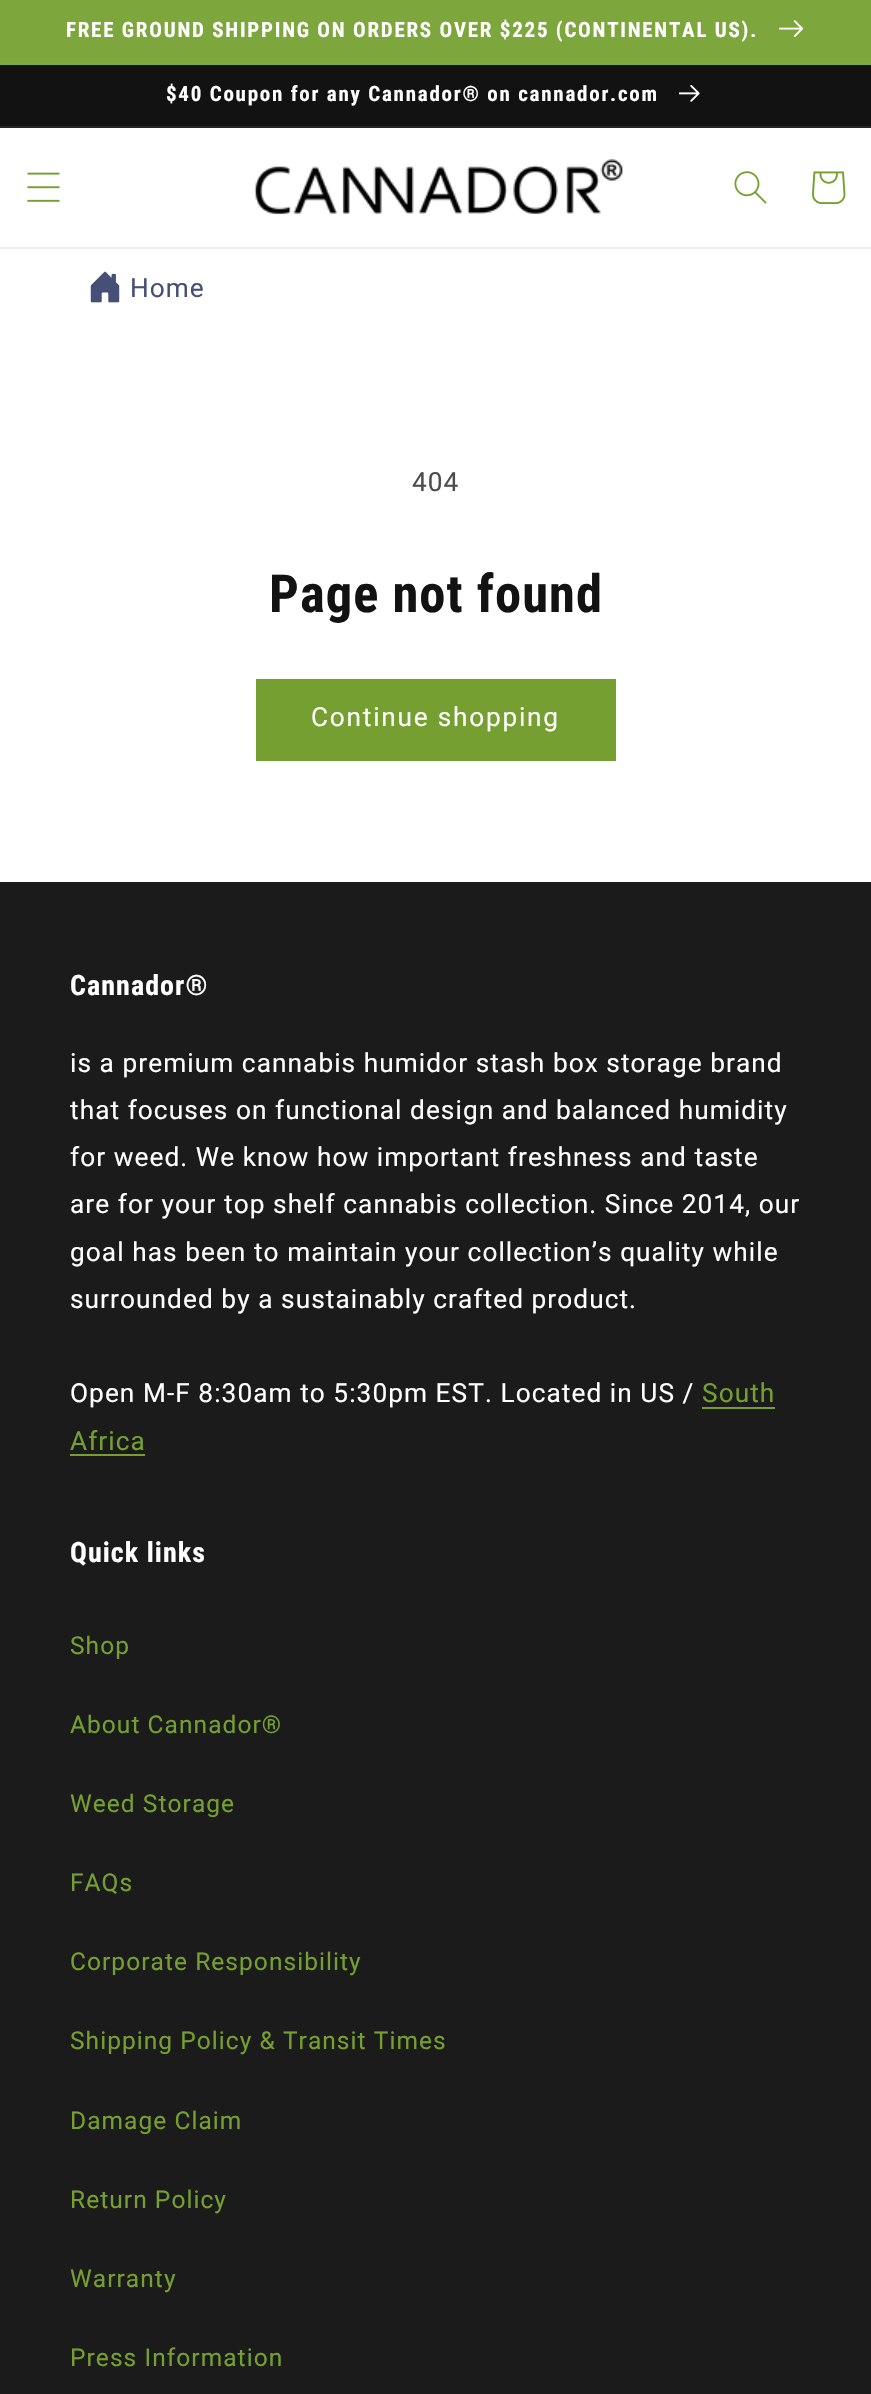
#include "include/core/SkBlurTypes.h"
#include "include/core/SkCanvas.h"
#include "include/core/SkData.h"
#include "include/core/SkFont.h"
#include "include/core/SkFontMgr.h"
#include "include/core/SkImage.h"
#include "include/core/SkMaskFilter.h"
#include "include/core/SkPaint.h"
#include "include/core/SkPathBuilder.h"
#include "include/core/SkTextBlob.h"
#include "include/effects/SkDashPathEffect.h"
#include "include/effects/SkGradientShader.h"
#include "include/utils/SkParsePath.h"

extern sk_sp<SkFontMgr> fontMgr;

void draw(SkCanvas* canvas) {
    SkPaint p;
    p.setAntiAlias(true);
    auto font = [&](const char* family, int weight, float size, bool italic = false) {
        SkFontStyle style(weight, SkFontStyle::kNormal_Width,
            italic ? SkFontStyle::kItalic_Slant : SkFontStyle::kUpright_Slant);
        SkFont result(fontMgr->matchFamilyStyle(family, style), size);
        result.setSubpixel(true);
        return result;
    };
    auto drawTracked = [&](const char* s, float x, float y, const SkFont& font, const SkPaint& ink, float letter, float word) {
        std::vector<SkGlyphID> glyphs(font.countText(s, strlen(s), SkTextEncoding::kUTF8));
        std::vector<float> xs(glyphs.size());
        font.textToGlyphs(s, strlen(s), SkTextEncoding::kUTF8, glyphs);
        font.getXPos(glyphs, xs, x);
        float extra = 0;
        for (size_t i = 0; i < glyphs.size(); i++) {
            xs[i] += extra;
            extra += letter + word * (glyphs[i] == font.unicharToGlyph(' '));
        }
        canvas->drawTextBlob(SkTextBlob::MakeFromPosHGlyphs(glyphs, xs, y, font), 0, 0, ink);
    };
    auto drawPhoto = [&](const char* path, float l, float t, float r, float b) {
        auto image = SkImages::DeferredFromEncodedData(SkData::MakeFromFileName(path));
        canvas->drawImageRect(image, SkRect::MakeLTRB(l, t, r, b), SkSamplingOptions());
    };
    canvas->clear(0xFFFFFFFF);
    p.setColor(0xFF80A841);
    canvas->drawRect(SkRect::MakeLTRB(0, 63, 871, 65), p);
    p.setColor(0xFF7DA63D);
    canvas->drawRect(SkRect::MakeLTRB(0, 0, 871, 63), p);
    auto font1 = font("Roboto Condensed", 700, 21);
    p.setColor(0xFFFFFFFF);
    drawTracked("FREE GROUND SHIPPING ON ORDERS OVER $225 (CONTINENTAL US).", 66, 37, font1, p, 1.75f, 0);
    drawPhoto("media/1.png", 779, 20, 804, 37);
    p.setColor(0xFF121212);
    canvas->drawRect(SkRect::MakeLTRB(0, 65, 871, 126), p);
    p.setColor(0xFF252525);
    canvas->drawRect(SkRect::MakeLTRB(0, 126, 871, 128), p);
    p.setColor(0xFFFFFFFF);
    drawTracked("$40 Coupon for any Cannador® on cannador.com", 166, 101, font1, p, 1.75f, 0);
    drawPhoto("media/2.png", 679, 85, 700, 102);
    p.setColor(0xFFECECEC);
    canvas->drawRect(SkRect::MakeLTRB(0, 247, 871, 249), p);
    drawPhoto("media/3.png", 27, 172, 60, 202);
    drawPhoto("media/4.png", 254, 159, 623, 215);
    drawPhoto("media/5.png", 734, 171, 767, 204);
    drawPhoto("media/6.png", 812, 171, 846, 205);
    drawPhoto("media/7.png", 90, 271, 120, 303);
    auto font2 = font("Roboto", 400, 26.25f);
    p.setColor(0xFF465076);
    drawTracked("Home", 130, 297, font2, p, 1.05f, 0);
    p.setColor(0xFF4D4D4D);
    drawTracked("404", 412, 491, font2, p, 1.05f, 0);
    auto font3 = font("Roboto Condensed", 700, 52.5f);
    p.setColor(0xFF121212);
    drawTracked("Page not found", 269, 612, font3, p, 1.05f, 0);
    p.setStyle(SkPaint::kStroke_Style);
    p.setStrokeWidth(2);
    p.setColor(0xFF75A031);
    canvas->drawRect(SkRect::MakeLTRB(257, 680, 615, 760), p);
    p.setStyle(SkPaint::kFill_Style);
    canvas->drawRect(SkRect::MakeLTRB(258, 681, 614, 759), p);
    p.setColor(0xFFFFFFFF);
    drawTracked("Continue shopping", 311, 726, font2, p, 1.75f, 0);
    p.setColor(0xFF1B1B1B);
    canvas->drawRect(SkRect::MakeLTRB(0, 882, 871, 2394), p);
    auto font4 = font("Roboto Condensed", 700, 28);
    p.setColor(0xFFFFFFFF);
    drawTracked("Cannador®", 70, 995, font4, p, 1.05f, 0);
    {
        const struct { const char* s; float x, y; } items[] = {
            {"is a premium cannabis humidor stash box storage brand", 70, 1072},
            {"that focuses on functional design and balanced humidity", 70, 1119},
            {"for weed. We know how important freshness and taste", 70, 1166},
            {"are for your top shelf cannabis collection. Since 2014, our", 70, 1213},
            {"goal has been to maintain your collection’s quality while", 70, 1261},
            {"surrounded by a sustainably crafted product.", 70, 1308},
            {"Open M-F 8:30am to 5:30pm EST. Located in US /", 70, 1402},
        };
        for (auto [s, x, y] : items) {
            drawTracked(s, x, y, font2, p, 1.05f, 0);
        }
    }
    p.setColor(0xFF75A031);
    drawTracked("South", 702, 1402, font2, p, 1.05f, 0);
    canvas->drawRect(SkRect::MakeLTRB(702, 1407, 775, 1409), p);
    drawTracked("Africa", 70, 1450, font2, p, 1.05f, 0);
    canvas->drawRect(SkRect::MakeLTRB(70, 1454, 145, 1456), p);
    p.setColor(0xFFFFFFFF);
    drawTracked("Quick links", 70, 1562, font4, p, 1.05f, 0);
    auto font5 = font("Roboto", 400, 24.5f);
    p.setColor(0xFF75A031);
    {
        const struct { const char* s; float x, y; } items[] = {
            {"Shop", 70, 1654},
            {"About Cannador®", 70, 1733},
            {"Weed Storage", 70, 1812},
            {"FAQs", 70, 1891},
            {"Corporate Responsibility", 70, 1970},
            {"Shipping Policy & Transit Times", 70, 2049},
            {"Damage Claim", 70, 2129},
            {"Return Policy", 70, 2208},
            {"Warranty", 70, 2287},
            {"Press Information", 70, 2366},
        };
        for (auto [s, x, y] : items) {
            drawTracked(s, x, y, font5, p, 1.05f, 0);
        }
    }
}
